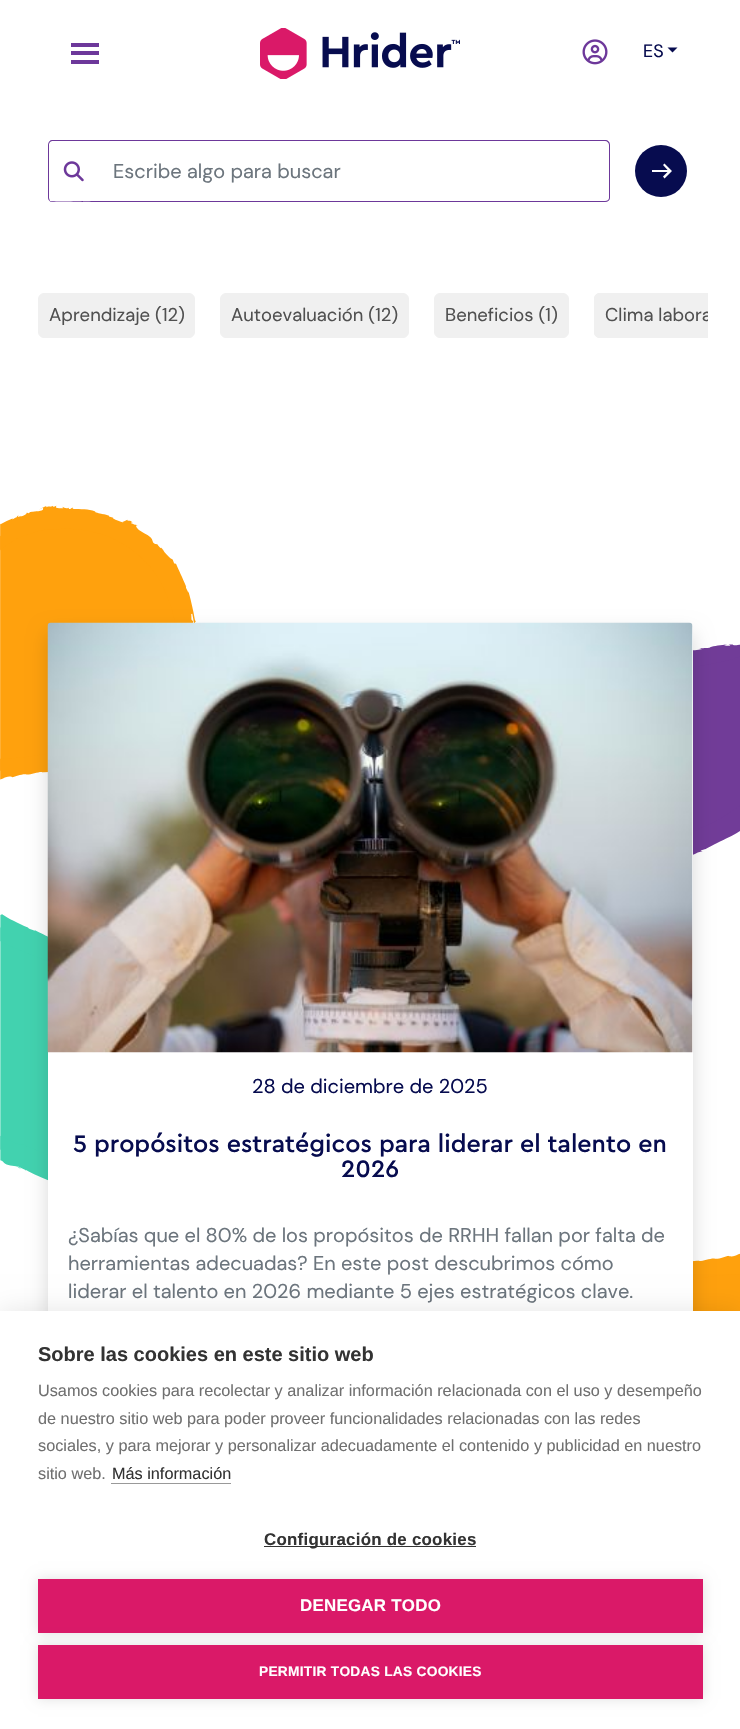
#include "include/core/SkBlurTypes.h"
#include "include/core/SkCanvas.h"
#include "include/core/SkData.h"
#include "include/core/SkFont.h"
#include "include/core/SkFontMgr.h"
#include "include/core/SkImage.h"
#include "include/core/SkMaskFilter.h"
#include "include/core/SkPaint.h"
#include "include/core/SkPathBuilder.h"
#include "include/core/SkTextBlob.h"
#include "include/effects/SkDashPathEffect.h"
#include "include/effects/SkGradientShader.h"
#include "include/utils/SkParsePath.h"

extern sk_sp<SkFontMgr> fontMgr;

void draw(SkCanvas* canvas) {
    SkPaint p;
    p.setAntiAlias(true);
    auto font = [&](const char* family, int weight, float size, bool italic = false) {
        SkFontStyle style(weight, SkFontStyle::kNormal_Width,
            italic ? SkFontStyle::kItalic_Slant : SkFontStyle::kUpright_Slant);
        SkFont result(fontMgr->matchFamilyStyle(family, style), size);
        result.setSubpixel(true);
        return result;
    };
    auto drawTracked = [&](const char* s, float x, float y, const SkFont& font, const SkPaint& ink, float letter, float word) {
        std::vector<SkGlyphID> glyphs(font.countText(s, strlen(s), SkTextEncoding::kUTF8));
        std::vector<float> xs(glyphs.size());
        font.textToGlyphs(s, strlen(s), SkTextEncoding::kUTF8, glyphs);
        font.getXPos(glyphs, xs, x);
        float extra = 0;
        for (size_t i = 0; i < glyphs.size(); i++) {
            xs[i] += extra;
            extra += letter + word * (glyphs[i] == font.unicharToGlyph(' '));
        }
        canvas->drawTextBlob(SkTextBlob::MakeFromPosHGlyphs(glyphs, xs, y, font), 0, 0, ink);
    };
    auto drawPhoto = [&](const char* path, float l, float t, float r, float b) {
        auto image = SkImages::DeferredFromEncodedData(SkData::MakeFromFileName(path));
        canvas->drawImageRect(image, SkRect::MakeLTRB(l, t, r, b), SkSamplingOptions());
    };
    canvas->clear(0xFFFFFFFF);
    {
        const struct { float l, t, r, b; SkColor color; } items[] = {
            {71, 43, 99, 47, 0xFF6D389A},
            {71, 51, 99, 55, 0xFF6D389A},
            {71, 60, 99, 64, 0xFF6D389A},
        };
        for (auto [l, t, r, b, color] : items) {
            p.setColor(color);
            canvas->drawRect(SkRect::MakeLTRB(l, t, r, b), p);
        }
    }
    drawPhoto("media/1.png", 260, 28, 460, 79);
    drawPhoto("media/2.png", 582, 39, 608, 65);
    auto font1 = font("DM Sans", 400, 18);
    p.setColor(0xFF070C4F);
    canvas->drawString("ES", 643, 57, font1, p);
    canvas->drawPath(SkPathBuilder().moveTo(667.5f, 47.5f).lineTo(677.5f, 47.5f).lineTo(672.5f, 52.5f).close().detach(), p);
    drawPhoto("media/3.png", 0, 505, 740, 1311);
    p.setColor(0xFF6D389A);
    canvas->drawPath(SkPathBuilder(SkPathFillType::kEvenOdd).moveTo(52, 140).lineTo(99, 140).lineTo(99, 202).lineTo(52, 202).cubicTo(50, 202, 48, 200, 48, 198).lineTo(48, 145).cubicTo(48, 142, 50, 140, 52, 140).close().moveTo(52, 141).lineTo(99, 141).lineTo(99, 201).cubicTo(93, 201, 53, 202, 50, 201).lineTo(49, 198).lineTo(49, 144).lineTo(50, 142).close().detach(), p);
    drawPhoto("media/4.png", 63, 161, 84, 182);
    canvas->drawPath(SkPathBuilder(SkPathFillType::kEvenOdd).moveTo(98, 140).lineTo(605, 140).cubicTo(608, 140, 610, 142, 610, 145).lineTo(610, 198).cubicTo(610, 200, 608, 202, 605, 202).lineTo(98, 202).close().moveTo(98, 141).lineTo(605, 141).cubicTo(607, 141, 609, 143, 609, 145).lineTo(609, 198).cubicTo(609, 200, 607, 201, 605, 201).lineTo(98, 201).close().detach(), p);
    auto font2 = font("DM Sans", 400, 20);
    p.setColor(0xFF6C757D);
    canvas->drawString("Escribe algo para buscar", 113, 178, font2, p);
    p.setColor(0xFF070C4F);
    canvas->drawCircle(661, 171, 26, p);
    p.setColor(0xFFFFFFFF);
    canvas->drawPath(SkPathBuilder().moveTo(664.5f, 178.5f).lineTo(663, 176.5f).lineTo(668.5f, 171).lineTo(663, 165).lineTo(664.5f, 163.5f).lineTo(672, 171).close().detach(), p);
    canvas->drawRect(SkRect::MakeLTRB(652, 170, 670, 172), p);
    p.setColor(0xFFF0F0F0);
    canvas->drawRoundRect(SkRect::MakeLTRB(38.5f, 293.5f, 194.5f, 337.5f), 5.5f, 5.5f, p);
    p.setStyle(SkPaint::kStroke_Style);
    p.setStrokeWidth(1);
    canvas->drawRoundRect(SkRect::MakeLTRB(38.5f, 293.5f, 194.5f, 337.5f), 5.5f, 5.5f, p);
    auto font3 = font("DM Sans", 400, 18.5f);
    p.setStyle(SkPaint::kFill_Style);
    p.setColor(0xFF505050);
    canvas->drawString("Aprendizaje (12)", 49, 321, font3, p);
    p.setColor(0xFFF0F0F0);
    canvas->drawRoundRect(SkRect::MakeLTRB(220.5f, 293.5f, 408.5f, 337.5f), 5.5f, 5.5f, p);
    p.setStyle(SkPaint::kStroke_Style);
    canvas->drawRoundRect(SkRect::MakeLTRB(220.5f, 293.5f, 408.5f, 337.5f), 5.5f, 5.5f, p);
    p.setStyle(SkPaint::kFill_Style);
    p.setColor(0xFF505050);
    canvas->drawString("Autoevaluación (12)", 231, 321, font3, p);
    p.setColor(0xFFF0F0F0);
    canvas->drawRoundRect(SkRect::MakeLTRB(434.5f, 293.5f, 568.5f, 337.5f), 5.5f, 5.5f, p);
    p.setStyle(SkPaint::kStroke_Style);
    canvas->drawRoundRect(SkRect::MakeLTRB(434.5f, 293.5f, 568.5f, 337.5f), 5.5f, 5.5f, p);
    p.setStyle(SkPaint::kFill_Style);
    p.setColor(0xFF505050);
    canvas->drawString("Beneficios (1)", 445, 321, font3, p);
    p.setColor(0xFFF0F0F0);
    canvas->drawPath(SkPathBuilder().moveTo(600, 293).lineTo(708, 293).lineTo(708, 338).lineTo(600, 338).cubicTo(596.5f, 338, 594, 335.5f, 594, 332).lineTo(594, 299).cubicTo(594, 295.5f, 596.5f, 293, 600, 293).close().detach(), p);
    canvas->save();
    canvas->clipRect(SkRect::MakeLTRB(33, 283, 708, 353));
    p.setStyle(SkPaint::kStroke_Style);
    canvas->drawRoundRect(SkRect::MakeLTRB(594.5f, 293.5f, 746.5f, 337.5f), 5.5f, 5.5f, p);
    p.setStyle(SkPaint::kFill_Style);
    p.setColor(0xFF505050);
    canvas->drawString("Clima labora", 605, 321, font3, p);
    canvas->restore();
    p.setColor(0x26000000);
    p.setMaskFilter(SkMaskFilter::MakeBlur(kNormal_SkBlurStyle, 10));
    canvas->drawRoundRect(SkRect::MakeLTRB(48, 633, 693, 1530), 5, 5, p);
    p.setMaskFilter(nullptr);
    p.setColor(0xFFFFFFFF);
    canvas->drawRoundRect(SkRect::MakeLTRB(48, 623, 693, 1520), 5, 5, p);
    drawPhoto("media/5.png", 47, 622, 693, 1053);
    p.setColor(0xFF070C4F);
    canvas->drawString("28 de diciembre de 2025", 252, 1093, font2, p);
    auto font4 = font("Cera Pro", 500, 25);
    canvas->drawString("5 propósitos estratégicos para liderar el talento en", 73, 1152, font4, p);
    canvas->drawString("2026", 341, 1177, font4, p);
    p.setColor(0xFF6C757D);
    {
        const struct { const char* s; float x, y; } items[] = {
            {"¿Sabías que el 80% de los propósitos de RRHH fallan por falta de", 68, 1242},
            {"herramientas adecuadas? En este post descubrimos cómo", 68, 1270},
            {"liderar el talento en 2026 mediante 5 ejes estratégicos clave.", 68, 1298},
        };
        for (auto [s, x, y] : items) {
            canvas->drawString(s, x, y, font2, p);
        }
    }
    p.setColor(0x1A000000);
    p.setMaskFilter(SkMaskFilter::MakeBlur(kNormal_SkBlurStyle, 12.5f));
    canvas->drawRect(SkRect::MakeLTRB(0, 1311, 740, 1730), p);
    p.setMaskFilter(nullptr);
    p.setColor(0xFFFFFFFF);
    canvas->drawRect(SkRect::MakeLTRB(0, 1311, 740, 1729), p);
    auto font5 = font("Liberation Sans", 700, 20);
    p.setColor(0xFF333333);
    canvas->drawString("Sobre las cookies en este sitio web", 38, 1361, font5, p);
    auto font6 = font("Liberation Sans", 400, 16.25f);
    p.setColor(0xFF707070);
    {
        const struct { const char* s; float x, y; } items[] = {
            {"Usamos cookies para recolectar y analizar información relacionada con el uso y desempeño", 38, 1396},
            {"de nuestro sitio web para poder proveer funcionalidades relacionadas con las redes", 38, 1424},
            {"sociales, y para mejorar y personalizar adecuadamente el contenido y publicidad en nuestro", 38, 1451},
            {"sitio web.", 38, 1479},
        };
        for (auto [s, x, y] : items) {
            canvas->drawString(s, x, y, font6, p);
        }
    }
    p.setColor(0xFF333333);
    canvas->drawString("Más información", 112, 1479, font6, p);
    p.setColor(0xFF999999);
    canvas->drawRect(SkRect::MakeLTRB(111, 1483, 231, 1484), p);
    p.setColor(0xFF333333);
    canvas->drawRect(SkRect::MakeLTRB(264, 1546, 476, 1547), p);
    auto font7 = font("Liberation Sans", 700, 16.9f);
    drawTracked("Configuración de cookies", 264, 1545, font7, p, 0.25f, 0);
    p.setColor(0x1F000000);
    p.setMaskFilter(SkMaskFilter::MakeBlur(kNormal_SkBlurStyle, 6));
    canvas->drawRect(SkRect::MakeLTRB(38, 1579, 703, 1633), p);
    p.setMaskFilter(nullptr);
    p.setColor(0xFFDA1968);
    canvas->drawRect(SkRect::MakeLTRB(38, 1579, 703, 1633), p);
    p.setColor(0xFFFFFFFF);
    drawTracked("DENEGAR TODO", 300, 1611, font7, p, 0.25f, 0);
    p.setColor(0x1F000000);
    p.setMaskFilter(SkMaskFilter::MakeBlur(kNormal_SkBlurStyle, 6));
    canvas->drawRect(SkRect::MakeLTRB(38, 1645, 703, 1699), p);
    p.setMaskFilter(nullptr);
    p.setColor(0xFFDA1968);
    canvas->drawRect(SkRect::MakeLTRB(38, 1645, 703, 1699), p);
    auto font8 = font("Liberation Sans", 700, 13.75f);
    p.setColor(0xFFFFFFFF);
    drawTracked("PERMITIR TODAS LAS COOKIES", 259, 1676, font8, p, 0.25f, 0);
}
